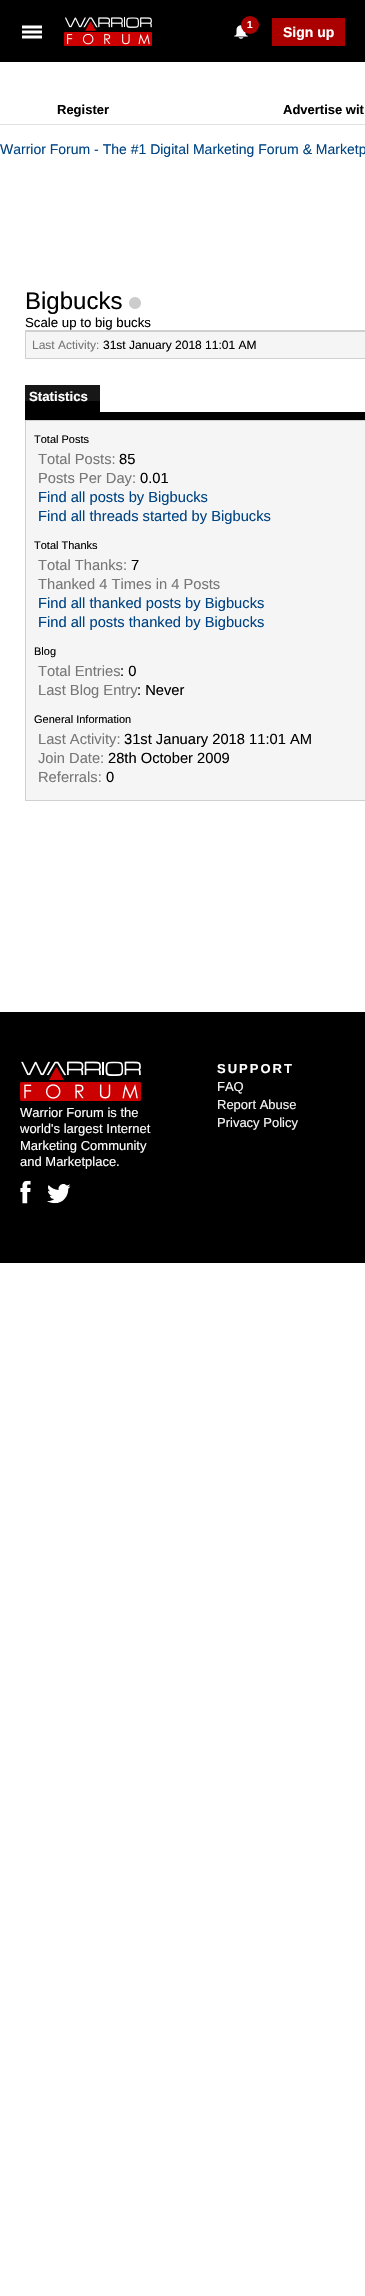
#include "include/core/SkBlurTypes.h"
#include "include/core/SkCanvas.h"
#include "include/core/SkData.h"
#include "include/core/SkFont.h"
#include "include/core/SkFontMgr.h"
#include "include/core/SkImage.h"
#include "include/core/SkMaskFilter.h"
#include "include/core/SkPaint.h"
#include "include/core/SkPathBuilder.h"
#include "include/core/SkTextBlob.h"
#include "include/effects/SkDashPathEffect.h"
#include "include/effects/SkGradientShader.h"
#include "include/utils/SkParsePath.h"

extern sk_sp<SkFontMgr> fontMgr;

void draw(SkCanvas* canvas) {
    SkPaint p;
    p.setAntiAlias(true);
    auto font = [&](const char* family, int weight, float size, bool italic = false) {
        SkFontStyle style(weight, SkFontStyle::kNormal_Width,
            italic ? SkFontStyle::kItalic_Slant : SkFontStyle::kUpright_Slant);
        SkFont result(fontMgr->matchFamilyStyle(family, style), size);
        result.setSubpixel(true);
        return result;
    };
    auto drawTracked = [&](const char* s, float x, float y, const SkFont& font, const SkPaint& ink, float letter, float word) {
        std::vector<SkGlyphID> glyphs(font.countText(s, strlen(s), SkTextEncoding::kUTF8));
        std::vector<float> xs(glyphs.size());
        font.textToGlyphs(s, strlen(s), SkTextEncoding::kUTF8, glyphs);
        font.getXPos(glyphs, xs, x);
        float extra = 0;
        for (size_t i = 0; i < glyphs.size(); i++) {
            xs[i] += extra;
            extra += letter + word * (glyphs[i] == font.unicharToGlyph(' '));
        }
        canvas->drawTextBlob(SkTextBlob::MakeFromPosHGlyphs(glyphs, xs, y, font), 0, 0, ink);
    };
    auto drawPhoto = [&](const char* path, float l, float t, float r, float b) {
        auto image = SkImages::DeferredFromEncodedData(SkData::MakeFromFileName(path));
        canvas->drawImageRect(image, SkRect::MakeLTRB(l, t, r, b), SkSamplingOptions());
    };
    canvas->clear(0xFFFFFFFF);
    p.setColor(0xFF000000);
    canvas->drawRect(SkRect::MakeLTRB(0, 0, 365, 62), p);
    drawPhoto("media/1.png", 22, 25, 42, 39);
    drawPhoto("media/2.png", 64, 17, 152, 46);
    drawPhoto("media/3.png", 234, 25, 248, 39);
    p.setColor(0xFFAA0000);
    canvas->drawCircle(250, 25, 9, p);
    auto font1 = font("Liberation Sans", 700, 10);
    p.setColor(0xFFFFFFFF);
    canvas->drawString("1", 247, 28, font1, p);
    p.setColor(0xFFAA0000);
    canvas->drawRect(SkRect::MakeLTRB(272, 18, 345, 46), p);
    auto font2 = font("Liberation Sans", 700, 14);
    p.setColor(0xFFFFFFFF);
    canvas->drawString("Sign up", 283, 37, font2, p);
    p.setColor(0xFFE2E2E2);
    canvas->drawRect(SkRect::MakeLTRB(0, 124, 365, 125), p);
    auto font3 = font("Liberation Sans", 700, 13);
    p.setColor(0xFF000000);
    canvas->drawString("Register", 57, 114, font3, p);
    canvas->drawString("Advertise wit", 283, 114, font3, p);
    auto font4 = font("Liberation Sans", 400, 14);
    p.setColor(0xFF004483);
    canvas->drawString("Warrior Forum - The #1 Digital Marketing Forum & Marketp", 0, 154, font4, p);
    auto font5 = font("Liberation Sans", 400, 24);
    p.setColor(0xFF000000);
    canvas->drawString("Bigbucks", 25, 309, font5, p);
    drawPhoto("media/4.png", 129, 297, 141, 309);
    auto font6 = font("Liberation Sans", 400, 13.25f);
    canvas->drawString("Scale up to big bucks", 25, 327, font6, p);
    p.setColor(0xFFD0D0D0);
    canvas->drawRect(SkRect::MakeLTRB(25, 330, 365, 359), p);
    p.setColor(0xFFF5F5F5);
    canvas->drawRect(SkRect::MakeLTRB(26, 332, 365, 358), p);
    auto font7 = font("Liberation Sans", 400, 12);
    p.setColor(0xFF777777);
    canvas->drawString("Last Activity:", 32, 349, font7, p);
    p.setColor(0xFF000000);
    canvas->drawString("31st January 2018 11:01 AM", 103, 349, font7, p);
    canvas->drawRect(SkRect::MakeLTRB(25, 401, 100, 412), p);
    p.setColor(0xFF171717);
    canvas->drawRect(SkRect::MakeLTRB(25, 385, 100, 401), p);
    auto font8 = font("Liberation Sans", 700, 13.25f);
    p.setColor(0xFFFFFFFF);
    canvas->drawString("Statistics", 29, 401, font8, p);
    {
        const struct { float l, t, r, b; SkColor color; } items[] = {
            {25, 412, 365, 420, 0xFF000000},
            {25, 420, 365, 801, 0xFFD0D0D0},
            {26, 421, 365, 800, 0xFFF5F5F5},
        };
        for (auto [l, t, r, b, color] : items) {
            p.setColor(color);
            canvas->drawRect(SkRect::MakeLTRB(l, t, r, b), p);
        }
    }
    auto font9 = font("Liberation Sans", 400, 11);
    p.setColor(0xFF000000);
    canvas->drawString("Total Posts", 34, 443, font9, p);
    auto font10 = font("Liberation Sans", 400, 14.7f);
    p.setColor(0xFF777777);
    canvas->drawString("Total Posts:", 38, 464, font10, p);
    p.setColor(0xFF000000);
    canvas->drawString("85", 119, 464, font10, p);
    p.setColor(0xFF777777);
    canvas->drawString("Posts Per Day:", 38, 483, font10, p);
    p.setColor(0xFF000000);
    canvas->drawString("0.01", 140, 483, font10, p);
    p.setColor(0xFF004483);
    canvas->drawString("Find all posts by Bigbucks", 38, 502, font10, p);
    canvas->drawString("Find all threads started by Bigbucks", 38, 521, font10, p);
    p.setColor(0xFF000000);
    canvas->drawString("Total Thanks", 34, 549, font9, p);
    p.setColor(0xFF777777);
    canvas->drawString("Total Thanks:", 38, 570, font10, p);
    p.setColor(0xFF000000);
    canvas->drawString("7", 131, 570, font10, p);
    p.setColor(0xFF777777);
    canvas->drawString("Thanked 4 Times in 4 Posts", 38, 589, font10, p);
    p.setColor(0xFF004483);
    canvas->drawString("Find all thanked posts by Bigbucks", 38, 608, font10, p);
    canvas->drawString("Find all posts thanked by Bigbucks", 38, 627, font10, p);
    p.setColor(0xFF000000);
    canvas->drawString("Blog", 34, 655, font9, p);
    p.setColor(0xFF777777);
    canvas->drawString("Total Entries", 38, 676, font10, p);
    p.setColor(0xFF000000);
    canvas->drawString(": 0", 120, 676, font10, p);
    p.setColor(0xFF777777);
    canvas->drawString("Last Blog Entry", 38, 695, font10, p);
    p.setColor(0xFF000000);
    canvas->drawString(": Never", 137, 695, font10, p);
    canvas->drawString("General Information", 34, 723, font9, p);
    p.setColor(0xFF777777);
    canvas->drawString("Last Activity:", 38, 744, font10, p);
    p.setColor(0xFF000000);
    canvas->drawString("31st January 2018 11:01 AM", 124, 744, font10, p);
    p.setColor(0xFF777777);
    canvas->drawString("Join Date:", 38, 763, font10, p);
    p.setColor(0xFF000000);
    canvas->drawString("28th October 2009", 108, 763, font10, p);
    p.setColor(0xFF777777);
    canvas->drawString("Referrals:", 38, 782, font10, p);
    p.setColor(0xFF000000);
    canvas->drawString("0", 106, 782, font10, p);
    canvas->drawRect(SkRect::MakeLTRB(0, 1012, 365, 1263), p);
    p.setColor(0xFFFFFFFF);
    drawTracked("SUPPORT", 217, 1073, font3, p, 2, 0);
    auto font11 = font("Liberation Sans", 400, 13);
    p.setColor(0xFFF8F8F8);
    {
        const struct { const char* s; float x, y; } items[] = {
            {"FAQ", 217, 1091},
            {"Report Abuse", 217, 1109},
            {"Privacy Policy", 217, 1127},
        };
        for (auto [s, x, y] : items) {
            canvas->drawString(s, x, y, font11, p);
        }
    }
    drawPhoto("media/5.png", 20, 1061, 141, 1101);
    p.setColor(0xFFFFFFFF);
    {
        const struct { const char* s; float x, y; } items[] = {
            {"Warrior Forum is the", 20, 1117},
            {"world's largest Internet", 20, 1133},
            {"Marketing Community", 20, 1150},
            {"and Marketplace.", 20, 1166},
        };
        for (auto [s, x, y] : items) {
            canvas->drawString(s, x, y, font11, p);
        }
    }
    drawPhoto("media/6.png", 20, 1180, 31, 1204);
    drawPhoto("media/7.png", 47, 1184, 71, 1204);
}
